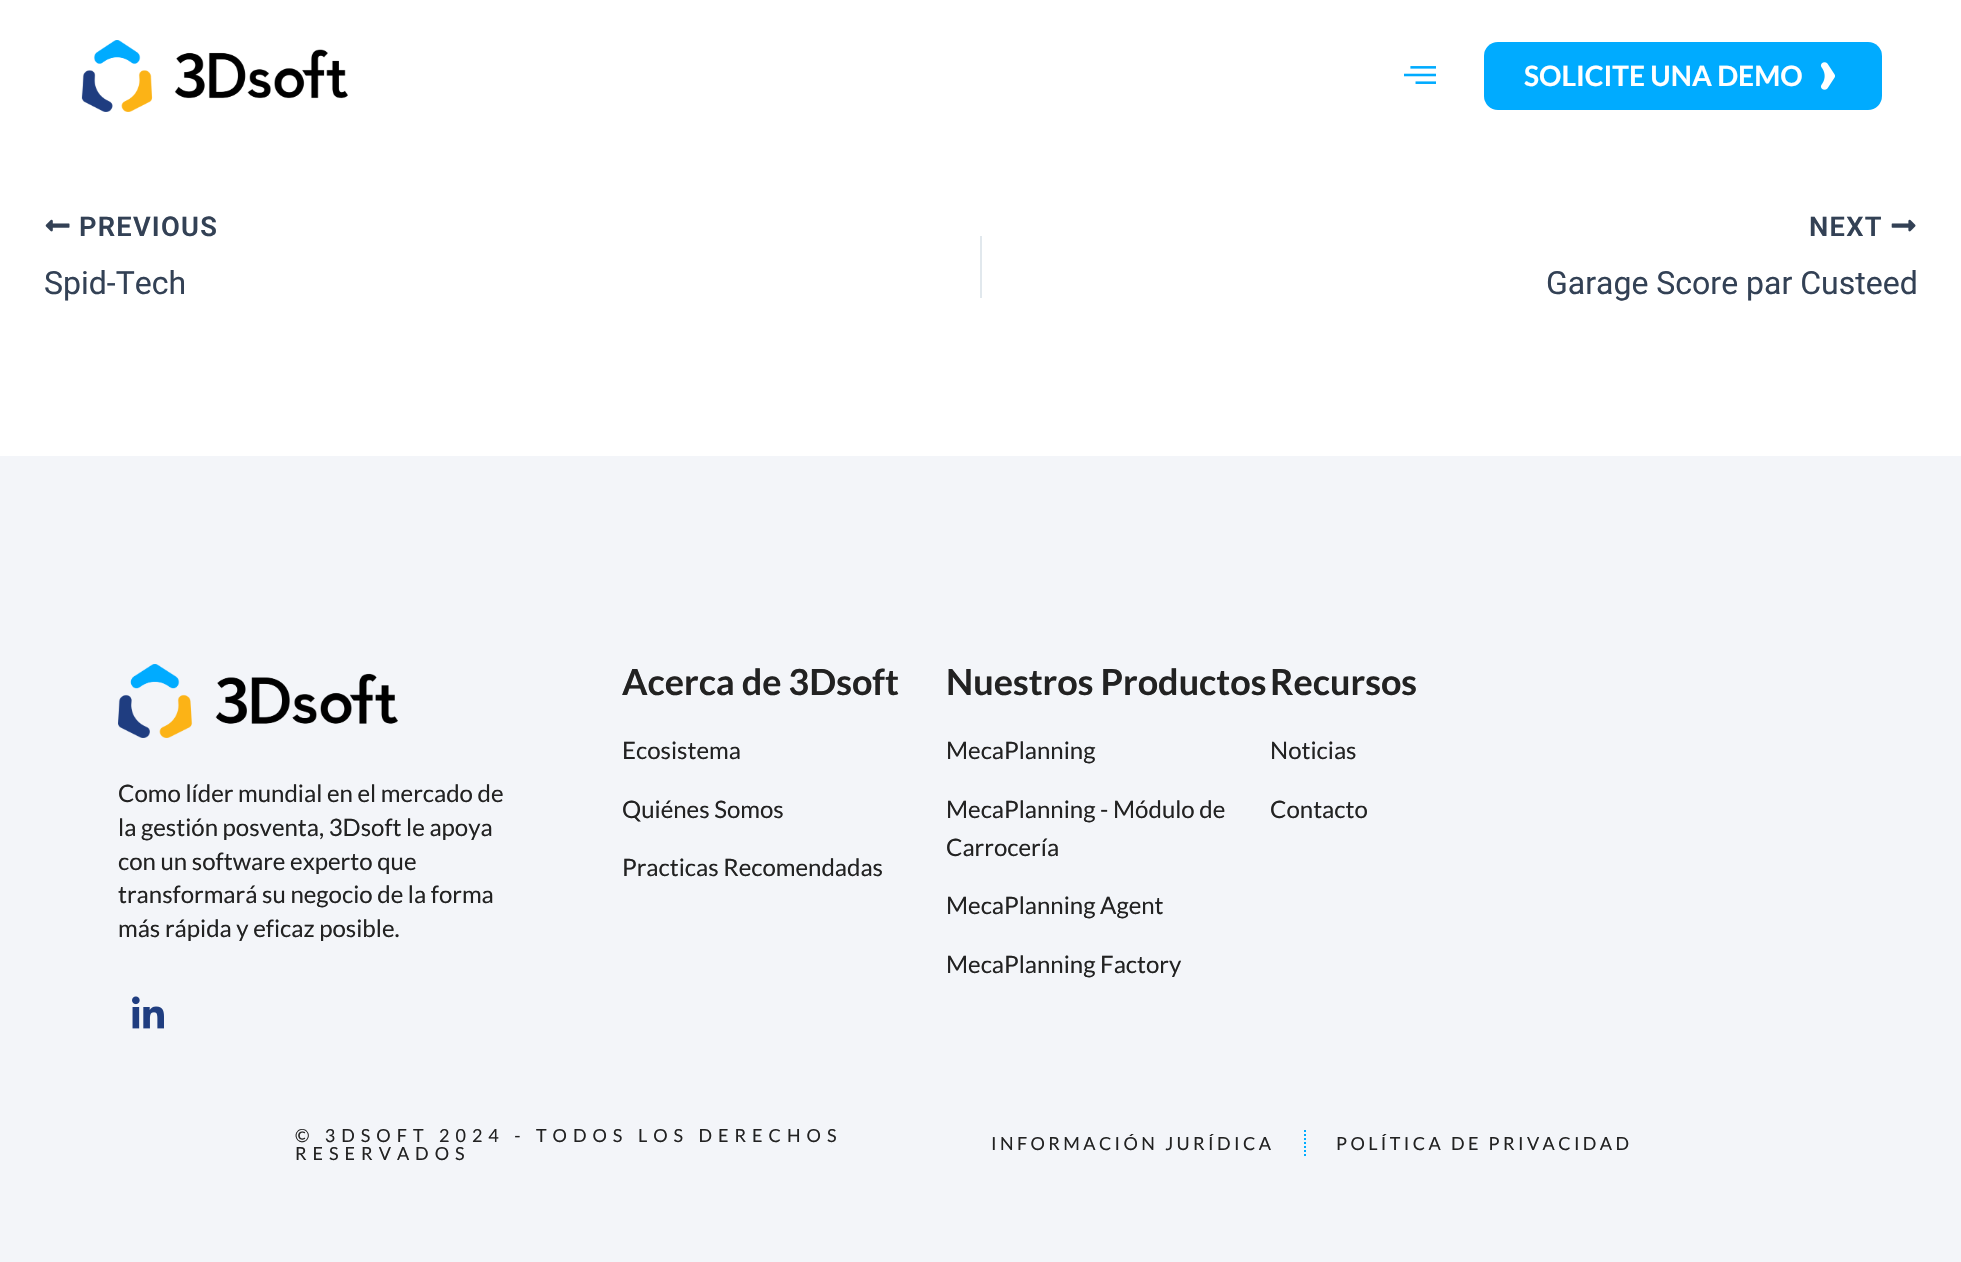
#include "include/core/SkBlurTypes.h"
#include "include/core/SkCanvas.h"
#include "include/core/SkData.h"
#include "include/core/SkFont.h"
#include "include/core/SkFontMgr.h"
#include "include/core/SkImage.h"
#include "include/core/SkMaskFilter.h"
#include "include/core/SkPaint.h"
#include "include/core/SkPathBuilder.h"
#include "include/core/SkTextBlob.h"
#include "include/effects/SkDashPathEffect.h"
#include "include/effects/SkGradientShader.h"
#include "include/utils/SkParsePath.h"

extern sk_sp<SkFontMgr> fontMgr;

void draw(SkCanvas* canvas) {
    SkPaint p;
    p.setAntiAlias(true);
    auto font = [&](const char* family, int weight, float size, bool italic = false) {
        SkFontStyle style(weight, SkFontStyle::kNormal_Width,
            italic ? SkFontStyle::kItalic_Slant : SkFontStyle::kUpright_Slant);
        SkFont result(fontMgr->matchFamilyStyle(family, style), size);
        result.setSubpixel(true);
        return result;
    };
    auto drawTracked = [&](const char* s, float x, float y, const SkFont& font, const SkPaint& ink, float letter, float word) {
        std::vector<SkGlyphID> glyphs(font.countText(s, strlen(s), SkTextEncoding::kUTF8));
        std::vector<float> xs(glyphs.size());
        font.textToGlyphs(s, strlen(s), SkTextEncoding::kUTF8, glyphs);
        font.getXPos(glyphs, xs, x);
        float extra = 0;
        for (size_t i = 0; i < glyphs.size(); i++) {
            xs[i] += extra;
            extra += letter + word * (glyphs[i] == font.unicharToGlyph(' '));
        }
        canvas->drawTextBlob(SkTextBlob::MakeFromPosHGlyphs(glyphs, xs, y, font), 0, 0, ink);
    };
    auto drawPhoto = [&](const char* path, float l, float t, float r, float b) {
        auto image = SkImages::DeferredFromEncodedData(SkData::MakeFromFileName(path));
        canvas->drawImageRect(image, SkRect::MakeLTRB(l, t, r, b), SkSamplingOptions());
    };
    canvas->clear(0xFFFFFFFF);
    drawPhoto("media/1.png", 81, 40, 348, 112);
    drawPhoto("media/2.png", 1404, 66, 1436, 84);
    p.setColor(0xFF00ABFF);
    canvas->drawRoundRect(SkRect::MakeLTRB(1484, 42, 1882, 110), 14, 14, p);
    auto font1 = font("Lato", 700, 28);
    p.setColor(0xFFFFFFFF);
    canvas->drawString("SOLICITE UNA DEMO", 1524, 86, font1, p);
    drawPhoto("media/3.png", 1820, 62, 1835, 90);
    drawPhoto("media/4.png", 45, 219, 70, 232);
    auto font2 = font("Roboto", 600, 27.25f);
    p.setColor(0xFF334155);
    drawTracked("PREVIOUS", 79, 236, font2, p, 1.25f, 0);
    auto font3 = font("Roboto", 400, 32);
    canvas->drawString("Spid-Tech", 44, 294, font3, p);
    p.setColor(0xFFE1E8ED);
    canvas->drawRect(SkRect::MakeLTRB(980, 236, 982, 298), p);
    p.setColor(0xFF334155);
    drawTracked("NEXT", 1809, 236, font2, p, 1.25f, 0);
    drawPhoto("media/5.png", 1891, 219, 1916, 232);
    canvas->drawString("Garage Score par Custeed", 1546, 294, font3, p);
    p.setColor(0xFFF3F5F9);
    canvas->drawRect(SkRect::MakeLTRB(0, 456, 1961, 1262), p);
    auto font4 = font("Lato", 700, 36);
    p.setColor(0xFF222222);
    canvas->drawString("Acerca de 3Dsoft", 622, 695, font4, p);
    auto font5 = font("Lato", 400, 24);
    {
        const struct { const char* s; float x, y; } items[] = {
            {"Ecosistema", 622, 759},
            {"Quiénes Somos", 622, 818},
            {"Practicas Recomendadas", 622, 876},
        };
        for (auto [s, x, y] : items) {
            canvas->drawString(s, x, y, font5, p);
        }
    }
    canvas->drawString("Nuestros Productos", 946, 695, font4, p);
    {
        const struct { const char* s; float x, y; } items[] = {
            {"MecaPlanning", 946, 759},
            {"MecaPlanning - Módulo de", 946, 818},
            {"Carrocería", 946, 856},
            {"MecaPlanning Agent", 946, 914},
            {"MecaPlanning Factory", 946, 973},
        };
        for (auto [s, x, y] : items) {
            canvas->drawString(s, x, y, font5, p);
        }
    }
    canvas->drawString("Recursos", 1270, 695, font4, p);
    canvas->drawString("Noticias", 1270, 759, font5, p);
    canvas->drawString("Contacto", 1270, 818, font5, p);
    drawPhoto("media/6.png", 118, 664, 398, 738);
    {
        const struct { const char* s; float x, y; } items[] = {
            {"Como líder mundial en el mercado de", 118, 802},
            {"la gestión posventa, 3Dsoft le apoya", 118, 836},
            {"con un software experto que", 118, 870},
            {"transformará su negocio de la forma", 118, 903},
            {"más rápida y eficaz posible.", 118, 937},
        };
        for (auto [s, x, y] : items) {
            canvas->drawString(s, x, y, font5, p);
        }
    }
    drawPhoto("media/7.png", 132, 996, 164, 1029);
    auto font6 = font("Lato", 400, 18);
    drawTracked("© 3DSOFT 2024 - TODOS LOS DERECHOS", 295, 1142, font6, p, 6, 0);
    drawTracked("RESERVADOS", 295, 1160, font6, p, 6, 0);
    drawTracked("INFORMACIÓN JURÍDICA", 991, 1150, font6, p, 3.4f, 0);
    p.setStyle(SkPaint::kStroke_Style);
    p.setStrokeWidth(2);
    p.setColor(0xFF00ABFF);
    p.setPathEffect(SkDashPathEffect::Make({{2, 2}}, 0));
    canvas->drawPath(SkPathBuilder().moveTo(1305, 1130).lineTo(1305, 1158).detach(), p);
    p.setPathEffect(nullptr);
    p.setStyle(SkPaint::kFill_Style);
    p.setColor(0xFF222222);
    drawTracked("POLÍTICA DE PRIVACIDAD", 1336, 1150, font6, p, 3.4f, 0);
}
